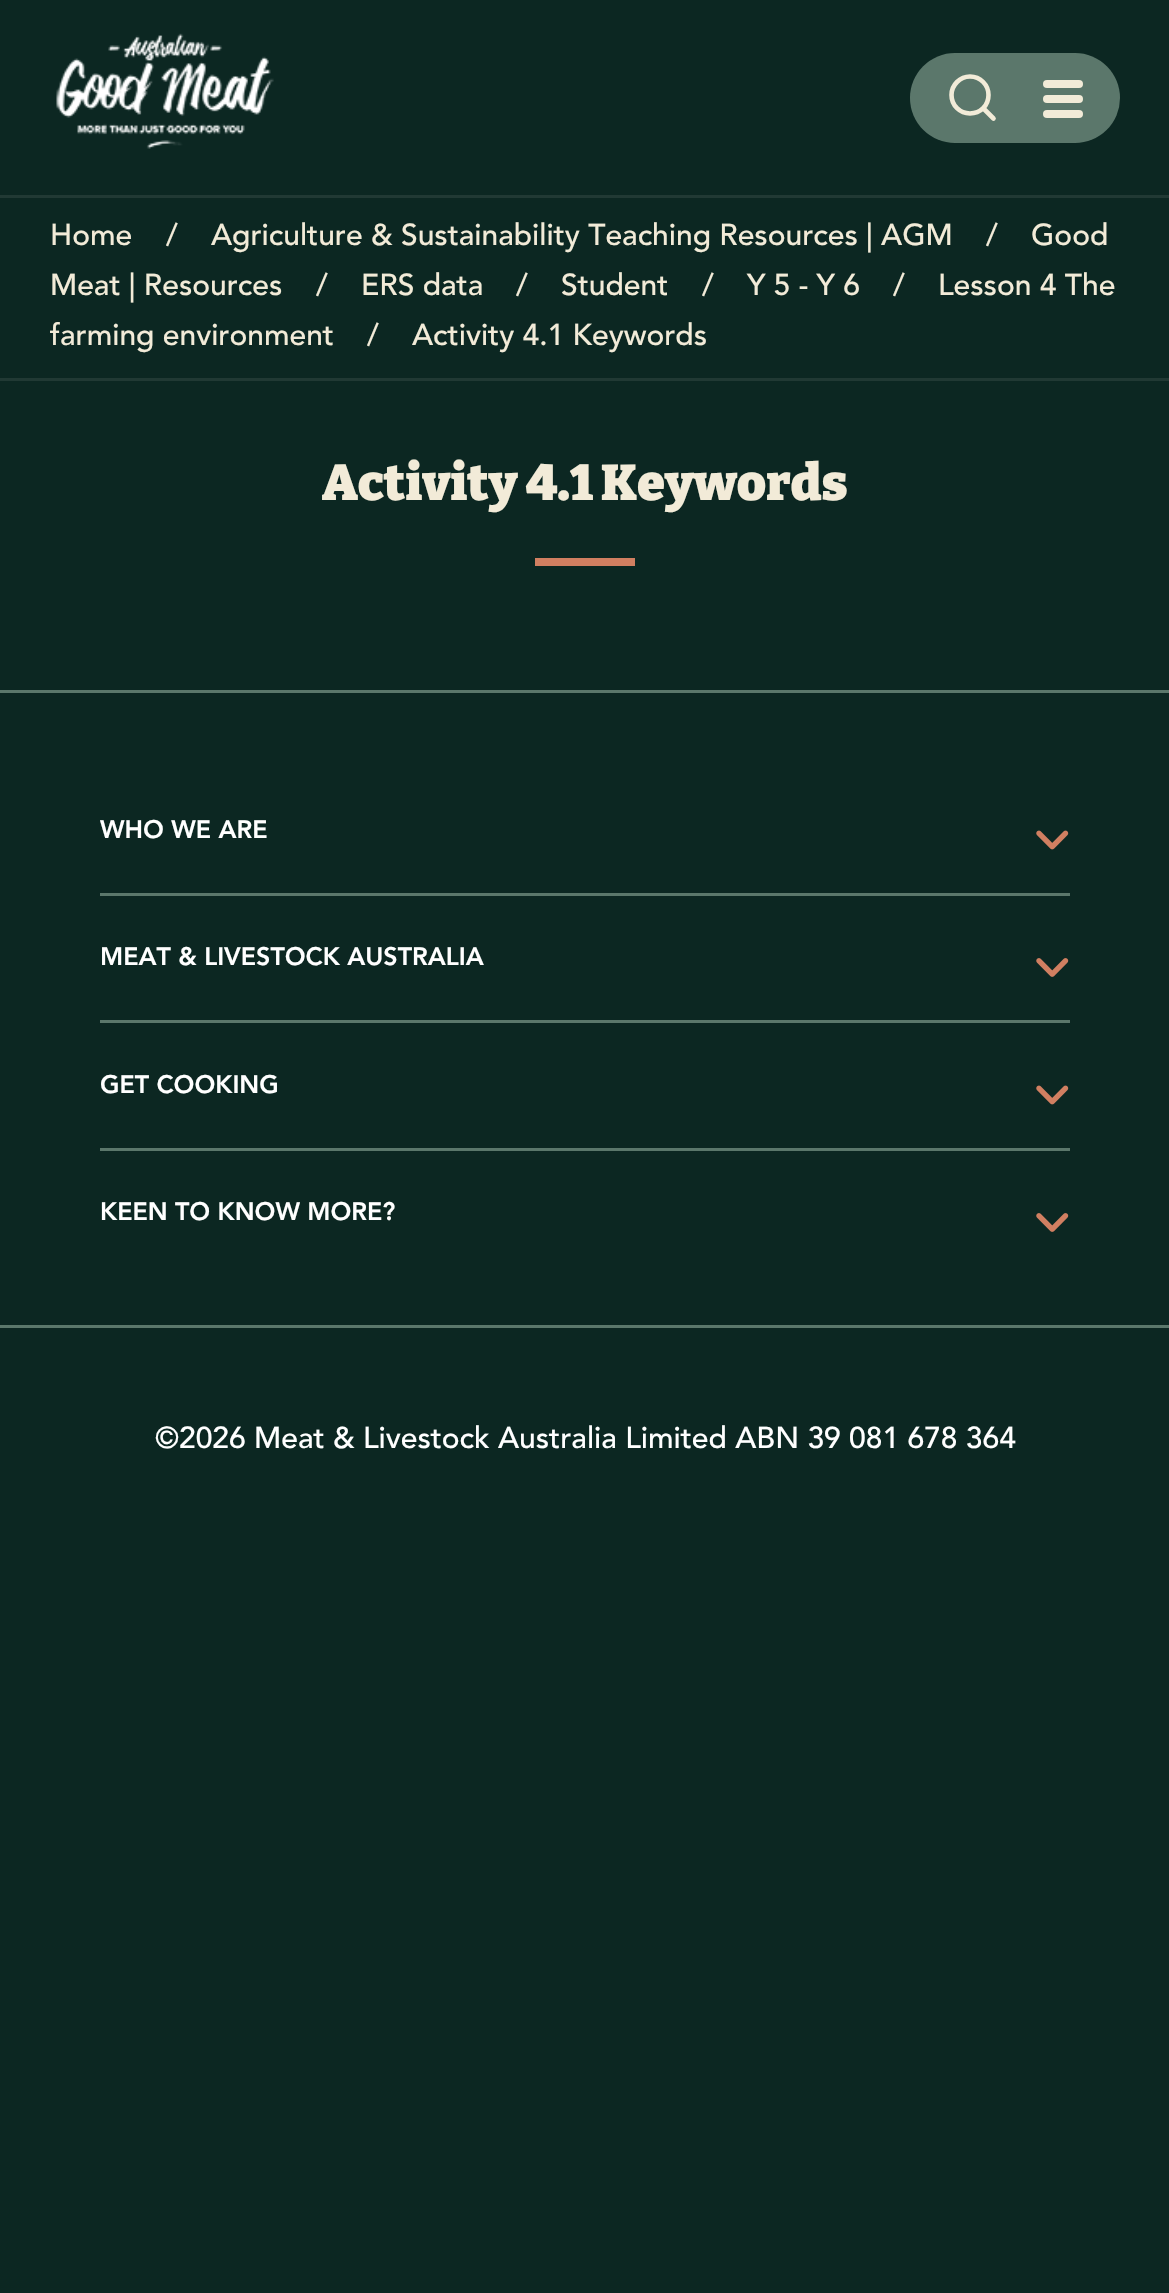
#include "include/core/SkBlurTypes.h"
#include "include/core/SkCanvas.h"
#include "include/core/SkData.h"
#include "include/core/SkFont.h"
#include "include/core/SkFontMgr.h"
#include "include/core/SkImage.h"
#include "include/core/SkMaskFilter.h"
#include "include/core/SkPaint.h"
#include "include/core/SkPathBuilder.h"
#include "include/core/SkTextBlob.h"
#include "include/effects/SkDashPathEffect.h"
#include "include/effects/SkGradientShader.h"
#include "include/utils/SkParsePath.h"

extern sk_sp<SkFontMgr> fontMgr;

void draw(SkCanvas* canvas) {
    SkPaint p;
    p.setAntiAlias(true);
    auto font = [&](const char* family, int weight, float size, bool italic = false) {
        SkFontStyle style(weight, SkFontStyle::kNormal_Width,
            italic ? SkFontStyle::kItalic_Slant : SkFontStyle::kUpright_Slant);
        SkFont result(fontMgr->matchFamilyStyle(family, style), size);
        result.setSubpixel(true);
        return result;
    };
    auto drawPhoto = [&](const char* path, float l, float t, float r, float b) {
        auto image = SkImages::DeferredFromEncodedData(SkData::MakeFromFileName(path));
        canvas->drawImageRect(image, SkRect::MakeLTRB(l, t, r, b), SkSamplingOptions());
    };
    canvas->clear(0xFF0C2722);
    drawPhoto("media/1.png", 56, 33, 274, 149);
    p.setColor(0xFF5B776B);
    canvas->drawRoundRect(SkRect::MakeLTRB(910, 53, 1120, 143), 45, 45, p);
    p.setStyle(SkPaint::kStroke_Style);
    p.setStrokeWidth(4.6f);
    p.setStrokeCap(SkPaint::kRound_Cap);
    p.setStrokeJoin(SkPaint::kRound_Join);
    p.setColor(0xFFF2EBD8);
    canvas->drawPath(SkPathBuilder().moveTo(970, 113.5f).cubicTo(980.5f, 113.5f, 988.5f, 105.5f, 988.5f, 95).cubicTo(988.5f, 85, 980.5f, 76.5f, 970, 76.5f).cubicTo(960, 76.5f, 951.5f, 85, 951.5f, 95).cubicTo(951.5f, 105.5f, 960, 113.5f, 970, 113.5f).close().moveTo(993.5f, 118.5f).lineTo(983.5f, 108.5f).detach(), p);
    p.setStyle(SkPaint::kFill_Style);
    canvas->drawRoundRect(SkRect::MakeLTRB(1043, 80, 1083, 88), 4, 4, p);
    canvas->drawRoundRect(SkRect::MakeLTRB(1043, 95, 1083, 103), 4, 4, p);
    canvas->drawRoundRect(SkRect::MakeLTRB(1043, 110, 1083, 118), 4, 4, p);
    p.setColor(0xFF213934);
    canvas->drawRect(SkRect::MakeLTRB(0, 195, 1169, 198), p);
    canvas->drawRect(SkRect::MakeLTRB(0, 378, 1169, 381), p);
    auto font1 = font("Avenir", 500, 30);
    p.setColor(0xFFF2EBD8);
    {
        const struct { const char* s; float x, y; } items[] = {
            {"Home", 50, 245},
            {"/", 166, 245},
            {"Agriculture & Sustainability Teaching Resources | AGM", 211, 245},
            {"/", 986, 245},
            {"Good", 1031, 245},
            {"Meat | Resources", 50, 295},
            {"/", 316, 295},
            {"ERS data", 361, 295},
            {"/", 516, 295},
            {"Student", 561, 295},
            {"/", 702, 295},
            {"Y 5 - Y 6", 747, 295},
            {"/", 893, 295},
            {"Lesson 4 The", 938, 295},
            {"farming environment", 50, 345},
            {"/", 367, 345},
            {"Activity 4.1 Keywords", 412, 345},
        };
        for (auto [s, x, y] : items) {
            canvas->drawString(s, x, y, font1, p);
        }
    }
    auto font2 = font("Bitter", 900, 50);
    canvas->drawString("Activity 4.1 Keywords", 322, 500, font2, p);
    {
        const struct { float l, t, r, b; SkColor color; } items[] = {
            {535, 558, 635, 566, 0xFFD17F61},
            {0, 690, 1169, 693, 0xFF5B776B},
            {0, 1325, 1169, 1328, 0xFF5B776B},
            {100, 893, 1070, 896, 0xFF5B776B},
        };
        for (auto [l, t, r, b, color] : items) {
            p.setColor(color);
            canvas->drawRect(SkRect::MakeLTRB(l, t, r, b), p);
        }
    }
    auto font3 = font("Avenir", 900, 25);
    p.setColor(0xFFFFFFFF);
    canvas->drawString("WHO WE ARE", 100, 838, font3, p);
    drawPhoto("media/2.png", 1036, 830, 1069, 850);
    p.setColor(0xFF5B776B);
    canvas->drawRect(SkRect::MakeLTRB(100, 1020, 1070, 1023), p);
    p.setColor(0xFFFFFFFF);
    canvas->drawString("MEAT & LIVESTOCK AUSTRALIA", 100, 965, font3, p);
    drawPhoto("media/3.png", 1036, 958, 1069, 977);
    p.setColor(0xFF5B776B);
    canvas->drawRect(SkRect::MakeLTRB(100, 1148, 1070, 1151), p);
    p.setColor(0xFFFFFFFF);
    canvas->drawString("GET COOKING", 100, 1093, font3, p);
    drawPhoto("media/2.png", 1036, 1085, 1069, 1105);
    canvas->drawString("KEEN TO KNOW MORE?", 100, 1220, font3, p);
    drawPhoto("media/3.png", 1036, 1213, 1069, 1232);
    canvas->drawString("©2026 Meat & Livestock Australia Limited ABN 39 081 678 364", 155, 1448, font1, p);
}
